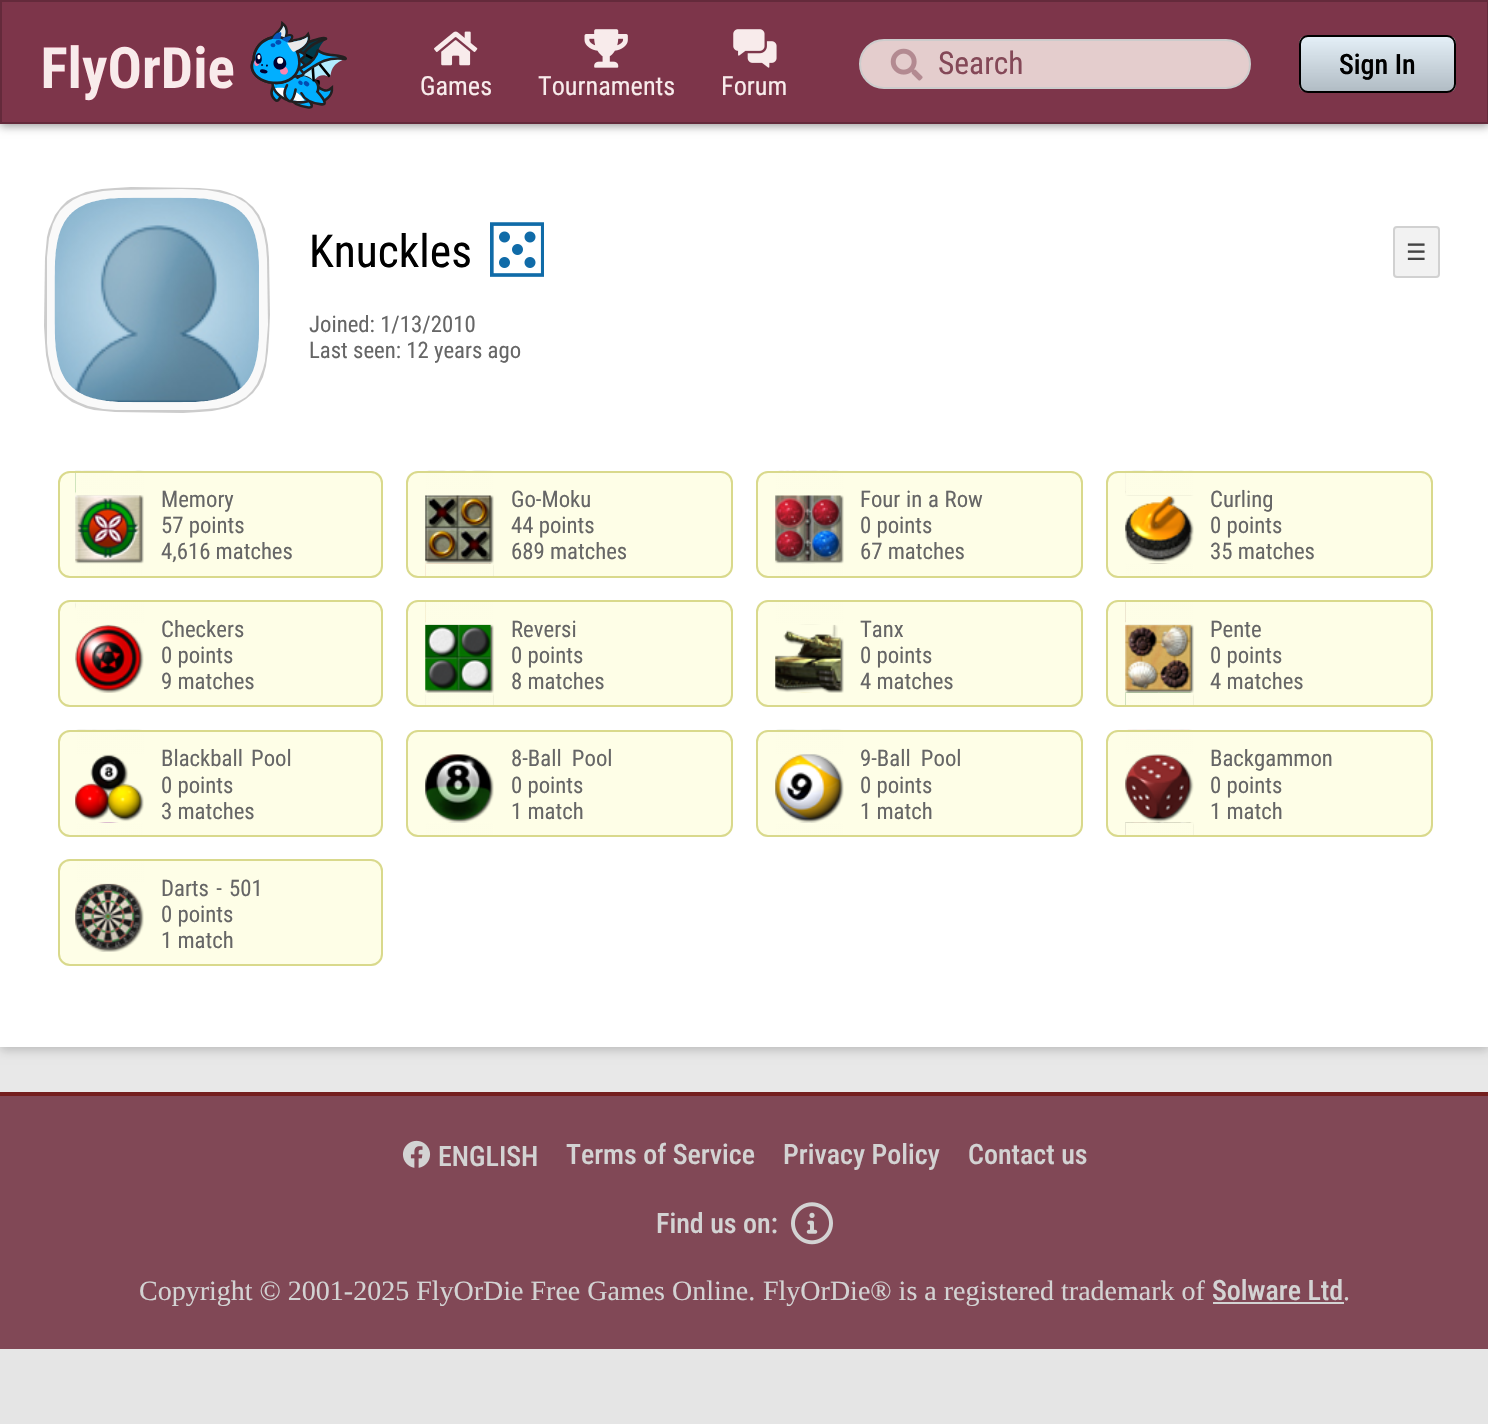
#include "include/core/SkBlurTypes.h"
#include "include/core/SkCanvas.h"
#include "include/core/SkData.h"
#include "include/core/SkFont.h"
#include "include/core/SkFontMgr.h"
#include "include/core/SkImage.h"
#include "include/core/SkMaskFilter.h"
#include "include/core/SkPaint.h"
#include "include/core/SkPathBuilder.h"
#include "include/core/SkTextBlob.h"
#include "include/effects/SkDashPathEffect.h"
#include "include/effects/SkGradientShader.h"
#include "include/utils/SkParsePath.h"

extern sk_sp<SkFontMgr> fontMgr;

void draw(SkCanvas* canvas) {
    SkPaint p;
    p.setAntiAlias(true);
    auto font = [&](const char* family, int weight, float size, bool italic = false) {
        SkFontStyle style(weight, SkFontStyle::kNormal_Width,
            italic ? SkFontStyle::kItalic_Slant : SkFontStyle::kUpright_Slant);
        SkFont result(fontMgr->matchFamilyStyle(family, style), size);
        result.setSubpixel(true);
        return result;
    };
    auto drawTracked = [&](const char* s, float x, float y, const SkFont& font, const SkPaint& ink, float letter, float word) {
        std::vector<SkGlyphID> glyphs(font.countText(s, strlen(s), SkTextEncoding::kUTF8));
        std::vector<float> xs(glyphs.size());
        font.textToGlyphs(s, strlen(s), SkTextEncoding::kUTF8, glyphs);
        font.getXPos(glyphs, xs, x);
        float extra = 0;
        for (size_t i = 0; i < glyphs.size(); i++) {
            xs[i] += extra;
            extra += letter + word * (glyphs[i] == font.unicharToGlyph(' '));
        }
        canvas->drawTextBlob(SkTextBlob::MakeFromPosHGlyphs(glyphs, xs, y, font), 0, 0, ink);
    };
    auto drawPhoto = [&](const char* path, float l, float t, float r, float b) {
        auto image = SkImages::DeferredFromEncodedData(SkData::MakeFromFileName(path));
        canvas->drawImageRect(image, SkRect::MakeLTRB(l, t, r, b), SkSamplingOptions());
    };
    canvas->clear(0xFFFFFFFF);
    {
        const SkColor colors[] = {0xFFE5E5E5, 0xFFF0F0F0};
        const float stops[] = {0, 1};
        const SkPoint ends[] = {{745, 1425}, {745, 0}};
        p.setShader(SkGradientShader::MakeLinear(ends, colors, stops, 2, SkTileMode::kClamp));
        p.setAlpha(255);
    }
    canvas->drawRect(SkRect::MakeLTRB(0, 1047, 1488, 1424), p);
    p.setShader(nullptr);
    p.setColor(0x33000000);
    p.setMaskFilter(SkMaskFilter::MakeBlur(kNormal_SkBlurStyle, 5));
    canvas->drawRect(SkRect::MakeLTRB(0, 126, 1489, 1050), p);
    p.setMaskFilter(nullptr);
    p.setColor(0xFFFFFFFF);
    canvas->drawRect(SkRect::MakeLTRB(0, 124, 1488, 1047), p);
    p.setColor(0x66000000);
    p.setMaskFilter(SkMaskFilter::MakeBlur(kNormal_SkBlurStyle, 4.5f));
    canvas->drawRect(SkRect::MakeLTRB(0, 2, 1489, 126), p);
    p.setMaskFilter(nullptr);
    p.setColor(0xFF7D354A);
    canvas->drawRect(SkRect::MakeLTRB(1, 1, 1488, 123), p);
    p.setStyle(SkPaint::kStroke_Style);
    p.setStrokeWidth(2);
    p.setColor(0xFF642A3B);
    canvas->drawRect(SkRect::MakeLTRB(1, 1, 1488, 123), p);
    drawPhoto("media/1.png", 43, 21, 347, 109);
    p.setStyle(SkPaint::kFill_Style);
    p.setColor(0xFFE4CDCD);
    canvas->drawRoundRect(SkRect::MakeLTRB(860, 40, 1250, 88), 24, 24, p);
    p.setStyle(SkPaint::kStroke_Style);
    p.setColor(0xFFCCCCCC);
    canvas->drawRoundRect(SkRect::MakeLTRB(860, 40, 1250, 88), 24, 24, p);
    drawPhoto("media/2.png", 890, 48, 923, 81);
    auto font1 = font("Roboto Condensed", 400, 31.5f);
    p.setStyle(SkPaint::kFill_Style);
    p.setColor(0xFF844857);
    canvas->drawString("Search", 938, 74, font1, p);
    canvas->save();
    canvas->clipPath(SkPathBuilder().moveTo(1308, 35).lineTo(1447, 35).cubicTo(1452, 35, 1456, 39, 1456, 44).lineTo(1456, 84).cubicTo(1456, 89, 1452, 93, 1447, 93).lineTo(1308, 93).cubicTo(1303, 93, 1299, 89, 1299, 84).lineTo(1299, 44).cubicTo(1299, 39, 1303, 35, 1308, 35).close().detach(), true);
    {
        const SkColor colors[] = {0xFFFFFFFF, 0xFFBDBDBD};
        const float stops[] = {0, 1};
        const SkPoint ends[] = {{1377, 37}, {1377, 91}};
        p.setShader(SkGradientShader::MakeLinear(ends, colors, stops, 2, SkTileMode::kClamp));
        p.setAlpha(255);
    }
    canvas->drawRect(SkRect::MakeLTRB(1299, 37, 1456, 91), p);
    canvas->restore();
    p.setShader(nullptr);
    p.setColor(0x3B8AB9DB);
    canvas->drawRoundRect(SkRect::MakeLTRB(1300, 36, 1455, 92), 8, 8, p);
    p.setStyle(SkPaint::kStroke_Style);
    p.setColor(0xFF000000);
    canvas->drawRoundRect(SkRect::MakeLTRB(1300, 36, 1455, 92), 8, 8, p);
    auto font2 = font("Roboto Condensed", 500, 28);
    p.setStyle(SkPaint::kFill_Style);
    canvas->drawString("Sign In", 1339, 74, font2, p);
    drawPhoto("media/3.png", 434, 31, 478, 66);
    auto font3 = font("Roboto Condensed", 400, 26.25f);
    p.setColor(0xFFF8EBEB);
    canvas->drawString("Games", 420, 95, font3, p);
    drawPhoto("media/4.png", 584, 29, 628, 68);
    canvas->drawString("Tournaments", 538, 95, font3, p);
    drawPhoto("media/5.png", 733, 29, 777, 68);
    canvas->drawString("Forum", 721, 95, font3, p);
    p.setColor(0xFFCCCCCC);
    canvas->drawPath(SkPathBuilder().moveTo(270, 315).lineTo(269, 258).lineTo(268, 245).lineTo(265, 229).lineTo(262, 222).lineTo(259, 215).lineTo(253, 207).lineTo(246, 201).lineTo(242, 198).lineTo(235, 195).lineTo(227, 192).lineTo(220, 190).lineTo(199, 188).lineTo(131, 187).lineTo(115, 188).lineTo(102, 189).lineTo(86, 192).lineTo(79, 195).lineTo(72, 198).lineTo(67, 201).lineTo(61, 207).lineTo(55, 215).lineTo(52, 222).lineTo(49, 229).lineTo(47, 237).lineTo(45, 258).lineTo(44, 326).lineTo(45, 342).lineTo(46, 355).lineTo(49, 370).lineTo(52, 378).lineTo(55, 385).lineTo(58, 390).lineTo(64, 396).lineTo(72, 402).lineTo(79, 405).lineTo(86, 408).lineTo(94, 410).lineTo(115, 412).lineTo(183, 413).lineTo(199, 412).lineTo(212, 411).lineTo(227, 408).lineTo(238, 404).lineTo(246, 399).lineTo(253, 393).lineTo(259, 385).lineTo(263, 377).lineTo(266, 366).lineTo(268, 351).lineTo(269, 336).close().detach(), p);
    p.setColor(0xFFF9F9F9);
    canvas->drawPath(SkPathBuilder().moveTo(47, 343).lineTo(47, 257).lineTo(49, 238).lineTo(51, 231).lineTo(53, 224).lineTo(57, 216).lineTo(60, 211).lineTo(65, 206).lineTo(73, 200).lineTo(81, 196).lineTo(92, 193).lineTo(103, 191).lineTo(116, 190).lineTo(182, 189).lineTo(207, 190).lineTo(218, 192).lineTo(226, 194).lineTo(234, 196).lineTo(241, 200).lineTo(246, 203).lineTo(252, 209).lineTo(257, 216).lineTo(261, 224).lineTo(264, 235).lineTo(266, 246).lineTo(267, 259).lineTo(268, 325).lineTo(266, 350).lineTo(265, 361).lineTo(263, 369).lineTo(260, 377).lineTo(257, 384).lineTo(252, 391).lineTo(246, 397).lineTo(241, 400).lineTo(233, 404).lineTo(226, 406).lineTo(218, 408).lineTo(207, 409).lineTo(193, 410).lineTo(132, 410).lineTo(116, 410).lineTo(103, 409).lineTo(88, 406).lineTo(78, 402).lineTo(69, 397).lineTo(62, 391).lineTo(57, 384).lineTo(53, 377).lineTo(51, 369).lineTo(48, 354).close().detach(), p);
    drawPhoto("media/6.png", 54, 197, 259, 403);
    auto font4 = font("Roboto Condensed", 400, 45.5f);
    p.setColor(0xFF000000);
    canvas->drawString("Knuckles", 309, 267, font4, p);
    drawPhoto("media/7.png", 490, 222, 544, 277);
    p.setColor(0xFFF2F2F2);
    canvas->drawRoundRect(SkRect::MakeLTRB(1394, 227, 1439, 277), 3, 3, p);
    p.setStyle(SkPaint::kStroke_Style);
    p.setColor(0xFFD1D1D1);
    canvas->drawRoundRect(SkRect::MakeLTRB(1394, 227, 1439, 277), 3, 3, p);
    auto font5 = font("DejaVu Sans", 400, 22.75f);
    p.setStyle(SkPaint::kFill_Style);
    p.setColor(0xFF444444);
    canvas->drawString("☰", 1406, 260, font5, p);
    auto font6 = font("Roboto Condensed", 400, 22.75f);
    p.setColor(0xFF666666);
    canvas->drawString("Joined: 1/13/2010", 309, 332, font6, p);
    canvas->drawString("Last seen: 12 years ago", 309, 358, font6, p);
    p.setColor(0xFFFEFEE7);
    canvas->drawRoundRect(SkRect::MakeLTRB(58, 471, 383, 578), 12, 12, p);
    drawPhoto("media/8.png", 75, 470, 144, 576);
    p.setStyle(SkPaint::kStroke_Style);
    p.setColor(0xFFD9D98C);
    canvas->drawRoundRect(SkRect::MakeLTRB(59, 472, 382, 577), 11, 11, p);
    p.setStyle(SkPaint::kFill_Style);
    p.setColor(0xFF666666);
    {
        const struct { const char* s; float x, y; } items[] = {
            {"Memory", 161, 507},
            {"57 points", 161, 533},
            {"4,616 matches", 161, 559},
        };
        for (auto [s, x, y] : items) {
            canvas->drawString(s, x, y, font6, p);
        }
    }
    p.setColor(0xFFFEFEE7);
    canvas->drawRoundRect(SkRect::MakeLTRB(406, 471, 733, 578), 12, 12, p);
    drawPhoto("media/9.png", 425, 470, 494, 576);
    p.setStyle(SkPaint::kStroke_Style);
    p.setColor(0xFFD9D98C);
    canvas->drawRoundRect(SkRect::MakeLTRB(407, 472, 732, 577), 11, 11, p);
    p.setStyle(SkPaint::kFill_Style);
    p.setColor(0xFF666666);
    {
        const struct { const char* s; float x, y; } items[] = {
            {"Go-Moku", 511, 507},
            {"44 points", 511, 533},
            {"689 matches", 511, 559},
        };
        for (auto [s, x, y] : items) {
            canvas->drawString(s, x, y, font6, p);
        }
    }
    p.setColor(0xFFFEFEE7);
    canvas->drawRoundRect(SkRect::MakeLTRB(756, 471, 1083, 578), 12, 12, p);
    drawPhoto("media/10.png", 775, 470, 844, 576);
    p.setStyle(SkPaint::kStroke_Style);
    p.setColor(0xFFD9D98C);
    canvas->drawRoundRect(SkRect::MakeLTRB(757, 472, 1082, 577), 11, 11, p);
    p.setStyle(SkPaint::kFill_Style);
    p.setColor(0xFF666666);
    drawTracked("Four in a Row", 860, 507, font6, p, 0, 0.5f);
    canvas->drawString("0 points", 860, 533, font6, p);
    canvas->drawString("67 matches", 860, 559, font6, p);
    p.setColor(0xFFFEFEE7);
    canvas->drawRoundRect(SkRect::MakeLTRB(1106, 471, 1433, 578), 12, 12, p);
    drawPhoto("media/11.png", 1125, 470, 1194, 576);
    p.setStyle(SkPaint::kStroke_Style);
    p.setColor(0xFFD9D98C);
    canvas->drawRoundRect(SkRect::MakeLTRB(1107, 472, 1432, 577), 11, 11, p);
    p.setStyle(SkPaint::kFill_Style);
    p.setColor(0xFF666666);
    {
        const struct { const char* s; float x, y; } items[] = {
            {"Curling", 1210, 507},
            {"0 points", 1210, 533},
            {"35 matches", 1210, 559},
        };
        for (auto [s, x, y] : items) {
            canvas->drawString(s, x, y, font6, p);
        }
    }
    p.setColor(0xFFFEFEE7);
    canvas->drawRoundRect(SkRect::MakeLTRB(58, 600, 383, 707), 12, 12, p);
    drawPhoto("media/12.png", 75, 602, 144, 693);
    p.setStyle(SkPaint::kStroke_Style);
    p.setColor(0xFFD9D98C);
    canvas->drawRoundRect(SkRect::MakeLTRB(59, 601, 382, 706), 11, 11, p);
    p.setStyle(SkPaint::kFill_Style);
    p.setColor(0xFF666666);
    {
        const struct { const char* s; float x, y; } items[] = {
            {"Checkers", 161, 637},
            {"0 points", 161, 663},
            {"9 matches", 161, 689},
        };
        for (auto [s, x, y] : items) {
            canvas->drawString(s, x, y, font6, p);
        }
    }
    p.setColor(0xFFFEFEE7);
    canvas->drawRoundRect(SkRect::MakeLTRB(406, 600, 733, 707), 12, 12, p);
    drawPhoto("media/13.png", 425, 602, 494, 705);
    p.setStyle(SkPaint::kStroke_Style);
    p.setColor(0xFFD9D98C);
    canvas->drawRoundRect(SkRect::MakeLTRB(407, 601, 732, 706), 11, 11, p);
    p.setStyle(SkPaint::kFill_Style);
    p.setColor(0xFF666666);
    {
        const struct { const char* s; float x, y; } items[] = {
            {"Reversi", 511, 637},
            {"0 points", 511, 663},
            {"8 matches", 511, 689},
        };
        for (auto [s, x, y] : items) {
            canvas->drawString(s, x, y, font6, p);
        }
    }
    p.setColor(0xFFFEFEE7);
    canvas->drawRoundRect(SkRect::MakeLTRB(756, 600, 1083, 707), 12, 12, p);
    drawPhoto("media/14.png", 775, 602, 844, 693);
    p.setStyle(SkPaint::kStroke_Style);
    p.setColor(0xFFD9D98C);
    canvas->drawRoundRect(SkRect::MakeLTRB(757, 601, 1082, 706), 11, 11, p);
    p.setStyle(SkPaint::kFill_Style);
    p.setColor(0xFF666666);
    {
        const struct { const char* s; float x, y; } items[] = {
            {"Tanx", 860, 637},
            {"0 points", 860, 663},
            {"4 matches", 860, 689},
        };
        for (auto [s, x, y] : items) {
            canvas->drawString(s, x, y, font6, p);
        }
    }
    p.setColor(0xFFFEFEE7);
    canvas->drawRoundRect(SkRect::MakeLTRB(1106, 600, 1433, 707), 12, 12, p);
    drawPhoto("media/15.png", 1125, 602, 1194, 705);
    p.setStyle(SkPaint::kStroke_Style);
    p.setColor(0xFFD9D98C);
    canvas->drawRoundRect(SkRect::MakeLTRB(1107, 601, 1432, 706), 11, 11, p);
    p.setStyle(SkPaint::kFill_Style);
    p.setColor(0xFF666666);
    {
        const struct { const char* s; float x, y; } items[] = {
            {"Pente", 1210, 637},
            {"0 points", 1210, 663},
            {"4 matches", 1210, 689},
        };
        for (auto [s, x, y] : items) {
            canvas->drawString(s, x, y, font6, p);
        }
    }
    p.setColor(0xFFFEFEE7);
    canvas->drawRoundRect(SkRect::MakeLTRB(58, 730, 383, 837), 12, 12, p);
    drawPhoto("media/16.png", 75, 729, 144, 835);
    p.setStyle(SkPaint::kStroke_Style);
    p.setColor(0xFFD9D98C);
    canvas->drawRoundRect(SkRect::MakeLTRB(59, 731, 382, 836), 11, 11, p);
    p.setStyle(SkPaint::kFill_Style);
    p.setColor(0xFF666666);
    drawTracked("Blackball Pool", 161, 766, font6, p, 0, 3);
    canvas->drawString("0 points", 161, 793, font6, p);
    canvas->drawString("3 matches", 161, 819, font6, p);
    p.setColor(0xFFFEFEE7);
    canvas->drawRoundRect(SkRect::MakeLTRB(406, 730, 733, 837), 12, 12, p);
    drawPhoto("media/17.png", 425, 754, 494, 835);
    p.setStyle(SkPaint::kStroke_Style);
    p.setColor(0xFFD9D98C);
    canvas->drawRoundRect(SkRect::MakeLTRB(407, 731, 732, 836), 11, 11, p);
    p.setStyle(SkPaint::kFill_Style);
    p.setColor(0xFF666666);
    drawTracked("8-Ball Pool", 511, 766, font6, p, 0, 5);
    canvas->drawString("0 points", 511, 793, font6, p);
    canvas->drawString("1 match", 511, 819, font6, p);
    p.setColor(0xFFFEFEE7);
    canvas->drawRoundRect(SkRect::MakeLTRB(756, 730, 1083, 837), 12, 12, p);
    drawPhoto("media/18.png", 775, 729, 844, 835);
    p.setStyle(SkPaint::kStroke_Style);
    p.setColor(0xFFD9D98C);
    canvas->drawRoundRect(SkRect::MakeLTRB(757, 731, 1082, 836), 11, 11, p);
    p.setStyle(SkPaint::kFill_Style);
    p.setColor(0xFF666666);
    drawTracked("9-Ball Pool", 860, 766, font6, p, 0, 5);
    canvas->drawString("0 points", 860, 793, font6, p);
    canvas->drawString("1 match", 860, 819, font6, p);
    p.setColor(0xFFFEFEE7);
    canvas->drawRoundRect(SkRect::MakeLTRB(1106, 730, 1433, 837), 12, 12, p);
    drawPhoto("media/19.png", 1125, 729, 1194, 835);
    p.setStyle(SkPaint::kStroke_Style);
    p.setColor(0xFFD9D98C);
    canvas->drawRoundRect(SkRect::MakeLTRB(1107, 731, 1432, 836), 11, 11, p);
    p.setStyle(SkPaint::kFill_Style);
    p.setColor(0xFF666666);
    {
        const struct { const char* s; float x, y; } items[] = {
            {"Backgammon", 1210, 766},
            {"0 points", 1210, 793},
            {"1 match", 1210, 819},
        };
        for (auto [s, x, y] : items) {
            canvas->drawString(s, x, y, font6, p);
        }
    }
    p.setColor(0xFFFEFEE7);
    canvas->drawRoundRect(SkRect::MakeLTRB(58, 859, 383, 966), 12, 12, p);
    drawPhoto("media/20.png", 75, 861, 144, 952);
    p.setStyle(SkPaint::kStroke_Style);
    p.setColor(0xFFD9D98C);
    canvas->drawRoundRect(SkRect::MakeLTRB(59, 860, 382, 965), 11, 11, p);
    p.setStyle(SkPaint::kFill_Style);
    p.setColor(0xFF666666);
    drawTracked("Darts - 501", 161, 896, font6, p, 0, 2);
    canvas->drawString("0 points", 161, 922, font6, p);
    canvas->drawString("1 match", 161, 948, font6, p);
    p.setColor(0xFF814856);
    canvas->drawRect(SkRect::MakeLTRB(0, 1096, 1488, 1349), p);
    p.setColor(0xFF741E1E);
    canvas->drawRect(SkRect::MakeLTRB(0, 1092, 1488, 1096), p);
    drawPhoto("media/21.png", 402, 1140, 431, 1168);
    p.setColor(0xFFD3D3D3);
    {
        const struct { const char* s; float x, y; } items[] = {
            {"ENGLISH", 438, 1166},
            {"Terms of Service", 566, 1164},
            {"Privacy Policy", 783, 1164},
            {"Contact us", 968, 1164},
            {"Find us on:", 656, 1233},
        };
        for (auto [s, x, y] : items) {
            canvas->drawString(s, x, y, font2, p);
        }
    }
    drawPhoto("media/22.png", 791, 1202, 833, 1245);
    auto font7 = font("Liberation Serif", 400, 28);
    canvas->drawString("Copyright © 2001-2025 FlyOrDie Free Games Online.", 139, 1300, font7, p);
    canvas->drawString("FlyOrDie® is a registered trademark of", 763, 1300, font7, p);
    canvas->drawString("Solware Ltd", 1212, 1300, font2, p);
    canvas->drawString(".", 1343, 1300, font7, p);
    canvas->drawRect(SkRect::MakeLTRB(1213, 1302, 1344, 1304), p);
}
